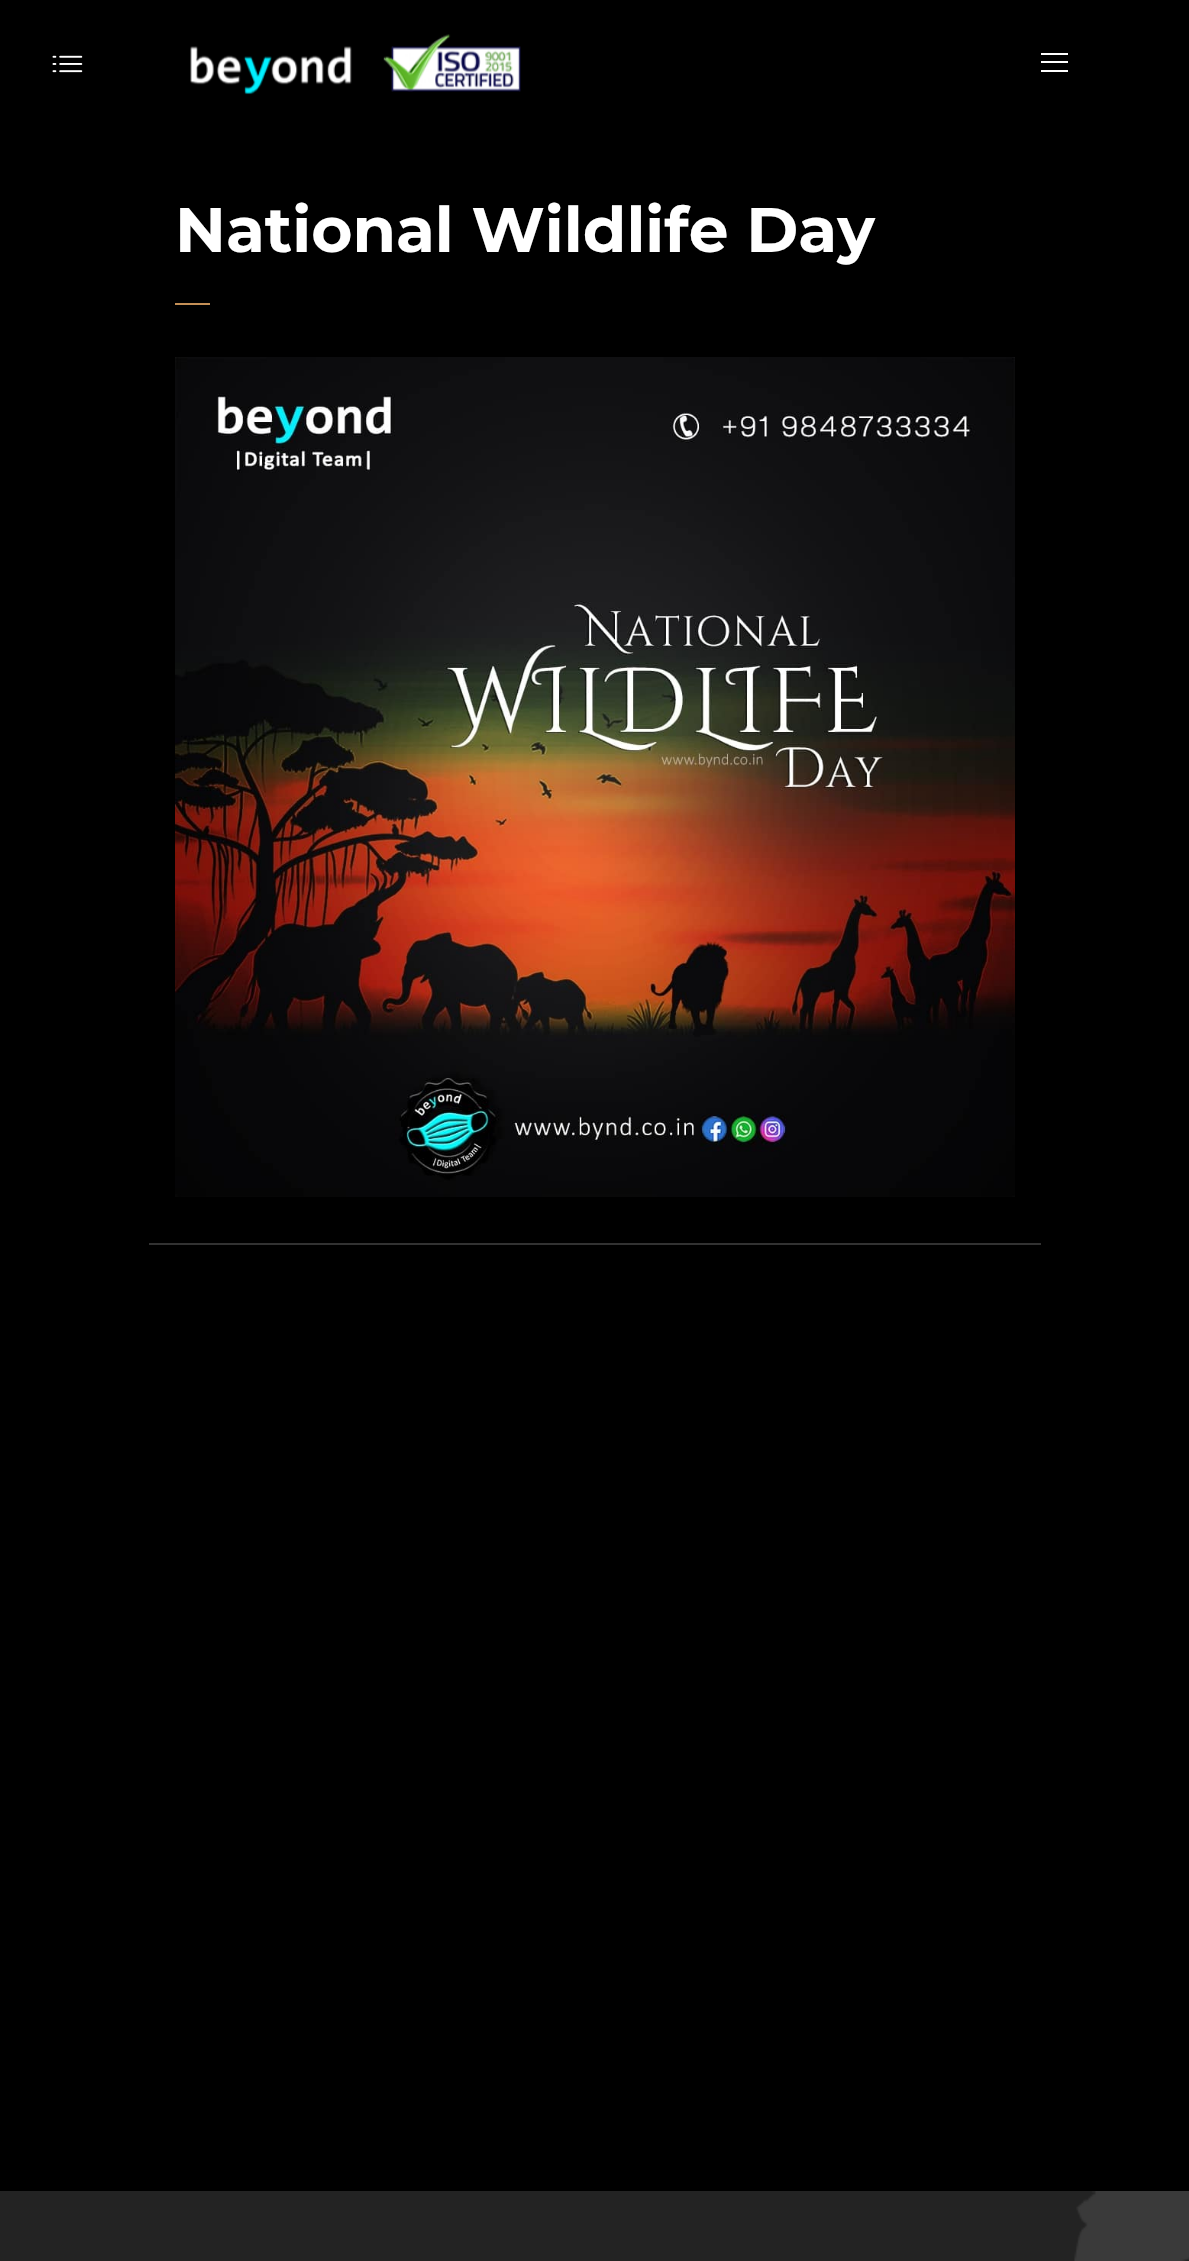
#include "include/core/SkBlurTypes.h"
#include "include/core/SkCanvas.h"
#include "include/core/SkData.h"
#include "include/core/SkFont.h"
#include "include/core/SkFontMgr.h"
#include "include/core/SkImage.h"
#include "include/core/SkMaskFilter.h"
#include "include/core/SkPaint.h"
#include "include/core/SkPathBuilder.h"
#include "include/core/SkTextBlob.h"
#include "include/effects/SkDashPathEffect.h"
#include "include/effects/SkGradientShader.h"
#include "include/utils/SkParsePath.h"

extern sk_sp<SkFontMgr> fontMgr;

void draw(SkCanvas* canvas) {
    SkPaint p;
    p.setAntiAlias(true);
    auto font = [&](const char* family, int weight, float size, bool italic = false) {
        SkFontStyle style(weight, SkFontStyle::kNormal_Width,
            italic ? SkFontStyle::kItalic_Slant : SkFontStyle::kUpright_Slant);
        SkFont result(fontMgr->matchFamilyStyle(family, style), size);
        result.setSubpixel(true);
        return result;
    };
    auto drawPhoto = [&](const char* path, float l, float t, float r, float b) {
        auto image = SkImages::DeferredFromEncodedData(SkData::MakeFromFileName(path));
        canvas->drawImageRect(image, SkRect::MakeLTRB(l, t, r, b), SkSamplingOptions());
    };
    canvas->clear(0xFF000000);
    drawPhoto("media/1.png", 52, 55, 83, 73);
    drawPhoto("media/2.png", 190, 34, 521, 95);
    {
        const struct { float l, t, r, b; SkColor color; } items[] = {
            {1041, 53, 1068, 55, 0xFFFFFFFF},
            {1041, 61, 1068, 63, 0xFFFFFFFF},
            {1041, 70, 1068, 72, 0xFFFFFFFF},
        };
        for (auto [l, t, r, b, color] : items) {
            p.setColor(color);
            canvas->drawRect(SkRect::MakeLTRB(l, t, r, b), p);
        }
    }
    auto font1 = font("Montserrat", 700, 63);
    canvas->drawString("National Wildlife Day", 175, 252, font1, p);
    p.setColor(0xFFC48F56);
    canvas->drawRect(SkRect::MakeLTRB(175, 303, 210, 305), p);
    drawPhoto("media/3.png", 175, 357, 1015, 1197);
    p.setColor(0xFF323232);
    canvas->drawRect(SkRect::MakeLTRB(149, 1243, 1041, 1245), p);
    p.setColor(0xFF232323);
    canvas->drawRect(SkRect::MakeLTRB(0, 2191, 1189, 2261), p);
    drawPhoto("media/4.png", 1074, 2191, 1189, 2261);
}
